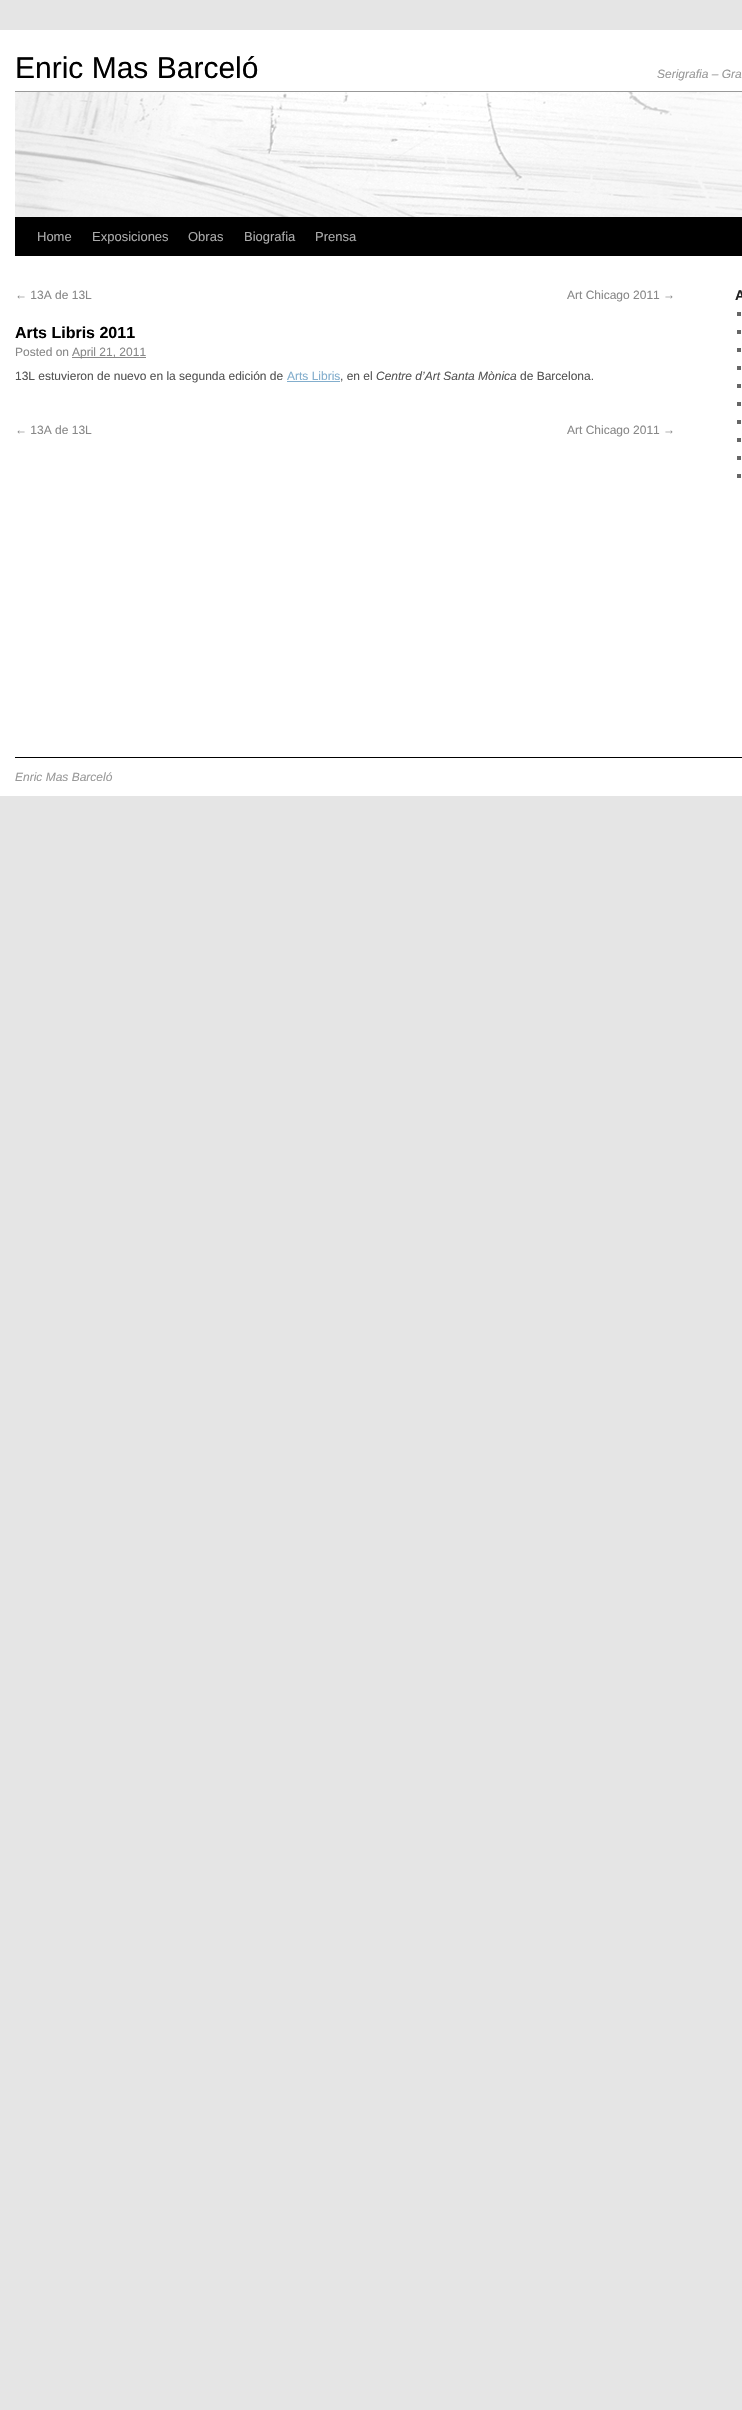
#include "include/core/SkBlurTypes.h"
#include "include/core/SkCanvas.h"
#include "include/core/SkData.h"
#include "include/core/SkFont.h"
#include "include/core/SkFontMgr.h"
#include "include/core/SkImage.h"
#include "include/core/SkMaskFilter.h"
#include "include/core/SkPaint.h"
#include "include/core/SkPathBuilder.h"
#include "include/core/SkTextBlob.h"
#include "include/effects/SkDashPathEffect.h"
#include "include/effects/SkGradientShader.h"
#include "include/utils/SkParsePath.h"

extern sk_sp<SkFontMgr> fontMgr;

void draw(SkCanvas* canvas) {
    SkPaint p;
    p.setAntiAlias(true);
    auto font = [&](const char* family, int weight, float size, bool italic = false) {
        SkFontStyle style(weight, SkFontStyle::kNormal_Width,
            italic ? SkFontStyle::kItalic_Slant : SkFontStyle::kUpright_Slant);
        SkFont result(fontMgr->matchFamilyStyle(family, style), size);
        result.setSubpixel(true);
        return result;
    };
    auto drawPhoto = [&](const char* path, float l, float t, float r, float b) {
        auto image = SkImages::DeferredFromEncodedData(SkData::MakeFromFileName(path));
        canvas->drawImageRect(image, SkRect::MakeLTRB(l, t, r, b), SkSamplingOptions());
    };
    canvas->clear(0xFFE5E5E5);
    p.setColor(0xFFFFFFFF);
    canvas->drawRect(SkRect::MakeLTRB(0, 30, 742, 796), p);
    auto font1 = font("Liberation Sans", 400, 30);
    p.setColor(0xFF000000);
    canvas->drawString("Enric Mas Barceló", 15, 78, font1, p);
    auto font2 = font("Liberation Sans", 400, 12, true);
    p.setColor(0xFF999999);
    canvas->drawString("Serigrafia – Gra", 657, 78, font2, p);
    canvas->drawRect(SkRect::MakeLTRB(15, 91, 742, 92), p);
    p.setColor(0xFF000000);
    canvas->drawRect(SkRect::MakeLTRB(15, 217, 742, 256), p);
    drawPhoto("media/1.png", 15, 92, 742, 217);
    auto font3 = font("Liberation Sans", 400, 13);
    p.setColor(0xFFAAAAAA);
    {
        const struct { const char* s; float x, y; } items[] = {
            {"Home", 37, 241},
            {"Exposiciones", 92, 241},
            {"Obras", 188, 241},
            {"Biografia", 244, 241},
            {"Prensa", 315, 241},
        };
        for (auto [s, x, y] : items) {
            canvas->drawString(s, x, y, font3, p);
        }
    }
    auto font4 = font("Liberation Sans", 400, 12);
    p.setColor(0xFF888888);
    canvas->drawString("← 13A de 13L", 15, 299, font4, p);
    canvas->drawString("Art Chicago 2011 →", 567, 299, font4, p);
    auto font5 = font("Liberation Sans", 700, 16);
    p.setColor(0xFF000000);
    canvas->drawString("Arts Libris 2011", 15, 338, font5, p);
    p.setColor(0xFF888888);
    canvas->drawString("Posted on", 15, 356, font4, p);
    canvas->drawRect(SkRect::MakeLTRB(72, 357, 146, 358), p);
    canvas->drawString("April 21, 2011", 72, 356, font4, p);
    p.setColor(0xFF555555);
    canvas->drawString("13L estuvieron de nuevo en la segunda edición de", 15, 380, font4, p);
    p.setColor(0xFF83AECD);
    canvas->drawString("Arts Libris", 287, 380, font4, p);
    canvas->drawRect(SkRect::MakeLTRB(287, 381, 340, 382), p);
    p.setColor(0xFF555555);
    canvas->drawString(", en el", 340, 380, font4, p);
    canvas->drawString("Centre d’Art Santa Mònica", 376, 380, font2, p);
    canvas->drawString("de Barcelona.", 520, 380, font4, p);
    p.setColor(0xFF888888);
    canvas->drawString("← 13A de 13L", 15, 434, font4, p);
    canvas->drawString("Art Chicago 2011 →", 567, 434, font4, p);
    auto font6 = font("Liberation Sans", 700, 14);
    p.setColor(0xFF222222);
    canvas->drawString("A", 735, 300, font6, p);
    {
        const struct { float l, t, r, b; SkColor color; } items[] = {
            {737, 312, 741, 316, 0xFF666666},
            {737, 330, 741, 334, 0xFF666666},
            {737, 348, 741, 352, 0xFF666666},
            {737, 366, 741, 370, 0xFF666666},
            {737, 384, 741, 388, 0xFF666666},
            {737, 402, 741, 406, 0xFF666666},
            {737, 420, 741, 424, 0xFF666666},
            {737, 438, 741, 442, 0xFF666666},
            {737, 456, 741, 460, 0xFF666666},
            {737, 474, 741, 478, 0xFF666666},
            {15, 757, 742, 758, 0xFF000000},
        };
        for (auto [l, t, r, b, color] : items) {
            p.setColor(color);
            canvas->drawRect(SkRect::MakeLTRB(l, t, r, b), p);
        }
    }
    p.setColor(0xFF999999);
    canvas->drawString("Enric Mas Barceló", 15, 781, font2, p);
}
